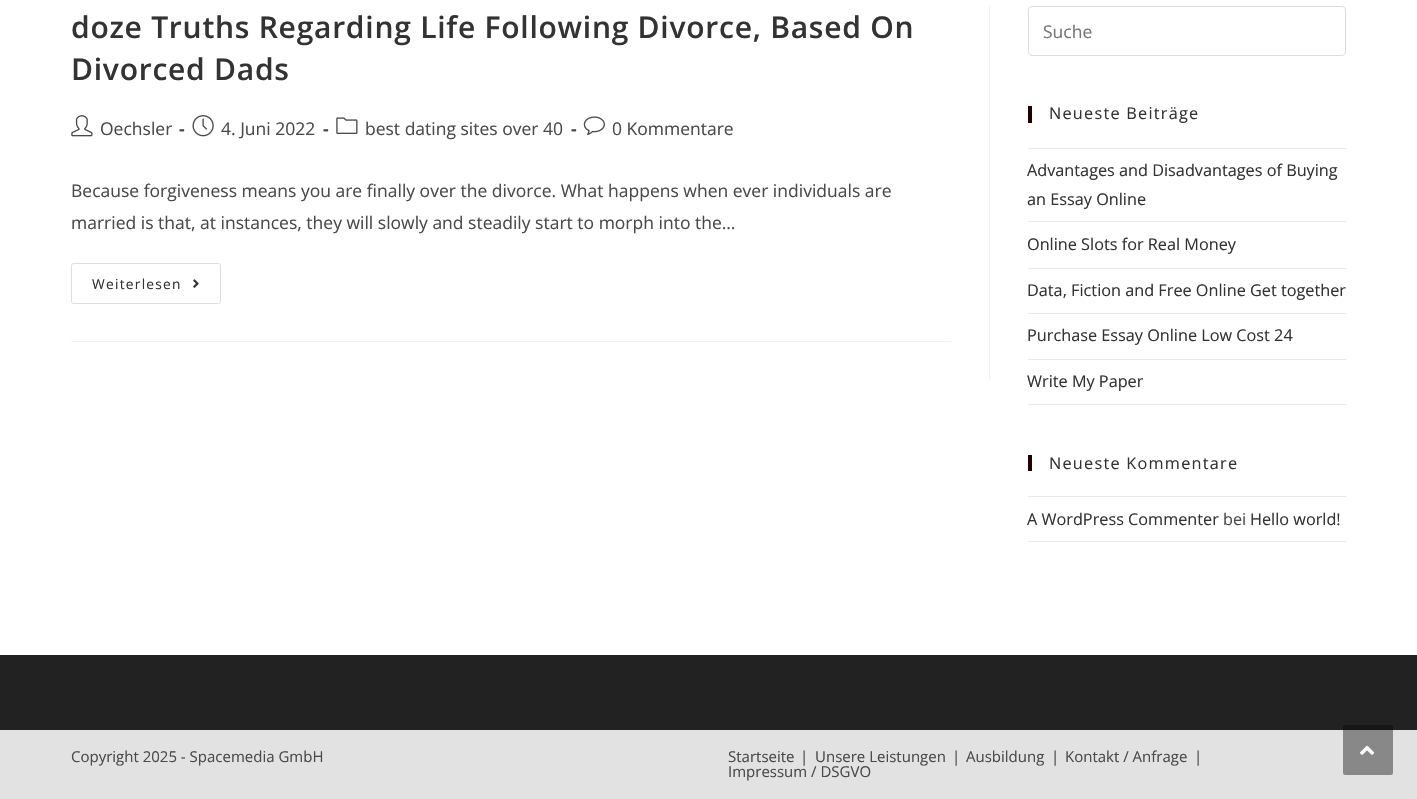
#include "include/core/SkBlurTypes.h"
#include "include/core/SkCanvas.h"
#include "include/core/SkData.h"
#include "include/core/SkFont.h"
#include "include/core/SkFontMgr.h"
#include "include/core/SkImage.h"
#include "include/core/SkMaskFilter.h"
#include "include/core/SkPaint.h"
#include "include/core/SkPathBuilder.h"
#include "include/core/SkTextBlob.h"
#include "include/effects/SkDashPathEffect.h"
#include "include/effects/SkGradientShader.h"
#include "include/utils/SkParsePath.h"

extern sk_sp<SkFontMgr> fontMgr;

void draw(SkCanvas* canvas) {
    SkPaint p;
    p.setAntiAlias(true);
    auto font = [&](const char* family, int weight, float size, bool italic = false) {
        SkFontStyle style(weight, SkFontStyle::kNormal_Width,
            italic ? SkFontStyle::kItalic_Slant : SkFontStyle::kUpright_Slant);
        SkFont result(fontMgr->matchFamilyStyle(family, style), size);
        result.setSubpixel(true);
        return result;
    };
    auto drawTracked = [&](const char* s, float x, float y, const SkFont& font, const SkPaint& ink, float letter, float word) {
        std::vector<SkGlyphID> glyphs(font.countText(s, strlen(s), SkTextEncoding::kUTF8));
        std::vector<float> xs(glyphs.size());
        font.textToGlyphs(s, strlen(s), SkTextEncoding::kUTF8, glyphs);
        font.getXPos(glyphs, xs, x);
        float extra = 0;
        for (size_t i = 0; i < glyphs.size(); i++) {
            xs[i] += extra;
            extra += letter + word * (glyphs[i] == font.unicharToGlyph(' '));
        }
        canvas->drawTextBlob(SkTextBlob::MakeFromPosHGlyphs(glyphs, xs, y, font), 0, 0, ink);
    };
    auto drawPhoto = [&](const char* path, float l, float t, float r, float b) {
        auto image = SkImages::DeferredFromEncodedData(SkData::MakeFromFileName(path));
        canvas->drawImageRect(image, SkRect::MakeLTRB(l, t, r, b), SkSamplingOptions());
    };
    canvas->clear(0xFFFFFFFF);
    p.setColor(0xFFF1F1F1);
    canvas->drawRect(SkRect::MakeLTRB(989, 6, 990, 380), p);
    canvas->drawRect(SkRect::MakeLTRB(71, 341, 951, 342), p);
    auto font1 = font("Open Sans", 600, 30);
    p.setColor(0xFF333333);
    drawTracked("doze Truths Regarding Life Following Divorce, Based On", 71, 38, font1, p, 0.75f, 0);
    drawTracked("Divorced Dads", 71, 80, font1, p, 0.75f, 0);
    drawPhoto("media/1.png", 71, 115, 93, 137);
    auto font2 = font("Open Sans", 400, 17.5f);
    p.setColor(0xFF4A4A4A);
    canvas->drawString("Oechsler", 100, 135, font2, p);
    auto font3 = font("Open Sans", 700, 17.5f);
    canvas->drawString("-", 179, 135, font3, p);
    drawPhoto("media/2.png", 192, 115, 214, 137);
    canvas->drawString("4. Juni 2022", 221, 135, font2, p);
    canvas->drawString("-", 323, 135, font3, p);
    drawPhoto("media/3.png", 336, 117, 358, 134);
    canvas->drawString("best dating sites over 40", 365, 135, font2, p);
    canvas->drawString("-", 571, 135, font3, p);
    drawPhoto("media/4.png", 583, 116, 605, 135);
    {
        const struct { const char* s; float x, y; } items[] = {
            {"0 Kommentare", 612, 135},
            {"Because forgiveness means you are finally over the divorce. What happens when ever individuals are", 71, 197},
            {"married is that, at instances, they will slowly and steadily start to morph into the…", 71, 229},
        };
        for (auto [s, x, y] : items) {
            canvas->drawString(s, x, y, font2, p);
        }
    }
    p.setStyle(SkPaint::kStroke_Style);
    p.setStrokeWidth(1);
    p.setColor(0xFFDDDDDD);
    canvas->drawRoundRect(SkRect::MakeLTRB(71.5f, 263.5f, 220.5f, 303.5f), 2, 2, p);
    auto font4 = font("Open Sans", 400, 13.75f);
    p.setStyle(SkPaint::kFill_Style);
    p.setColor(0xFF333333);
    drawTracked("Weiterlesen", 92, 289, font4, p, 1.25f, 0);
    drawPhoto("media/5.png", 193, 279, 199, 288);
    p.setStyle(SkPaint::kStroke_Style);
    p.setColor(0xFFDDDDDD);
    canvas->drawRoundRect(SkRect::MakeLTRB(1028.5f, 6.5f, 1345.5f, 55.5f), 3.5f, 3.5f, p);
    p.setStyle(SkPaint::kFill_Style);
    p.setColor(0xFF757575);
    canvas->drawString("Suche", 1043, 38, font2, p);
    p.setColor(0xFF210000);
    canvas->drawRect(SkRect::MakeLTRB(1028, 106, 1032, 123), p);
    auto font5 = font("Open Sans", 400, 16.25f);
    p.setColor(0xFF333333);
    drawTracked("Neueste Beiträge", 1049, 119, font5, p, 1.25f, 0);
    p.setColor(0xFFE9E9E9);
    canvas->drawRect(SkRect::MakeLTRB(1028, 148, 1346, 149), p);
    canvas->drawRect(SkRect::MakeLTRB(1028, 221, 1346, 222), p);
    p.setColor(0xFF333333);
    canvas->drawString("Advantages and Disadvantages of Buying", 1027, 176, font5, p);
    canvas->drawString("an Essay Online", 1027, 205, font5, p);
    p.setColor(0xFFE9E9E9);
    canvas->drawRect(SkRect::MakeLTRB(1028, 268, 1346, 269), p);
    p.setColor(0xFF333333);
    canvas->drawString("Online Slots for Real Money", 1027, 250, font5, p);
    p.setColor(0xFFE9E9E9);
    canvas->drawRect(SkRect::MakeLTRB(1028, 313, 1346, 314), p);
    p.setColor(0xFF333333);
    canvas->drawString("Data, Fiction and Free Online Get together", 1027, 296, font5, p);
    p.setColor(0xFFE9E9E9);
    canvas->drawRect(SkRect::MakeLTRB(1028, 359, 1346, 360), p);
    p.setColor(0xFF333333);
    canvas->drawString("Purchase Essay Online Low Cost 24", 1027, 341, font5, p);
    p.setColor(0xFFE9E9E9);
    canvas->drawRect(SkRect::MakeLTRB(1028, 404, 1346, 405), p);
    p.setColor(0xFF333333);
    canvas->drawString("Write My Paper", 1027, 387, font5, p);
    p.setColor(0xFF210000);
    canvas->drawRect(SkRect::MakeLTRB(1028, 455, 1032, 471), p);
    p.setColor(0xFF333333);
    drawTracked("Neueste Kommentare", 1049, 469, font5, p, 1.25f, 0);
    p.setColor(0xFFE9E9E9);
    canvas->drawRect(SkRect::MakeLTRB(1028, 496, 1346, 497), p);
    canvas->drawRect(SkRect::MakeLTRB(1028, 541, 1346, 542), p);
    p.setColor(0xFF333333);
    canvas->drawString("A WordPress Commenter", 1027, 525, font5, p);
    p.setColor(0xFF4A4A4A);
    canvas->drawString("bei", 1223, 525, font5, p);
    p.setColor(0xFF333333);
    canvas->drawString("Hello world!", 1250, 525, font5, p);
    p.setColor(0xFF222222);
    canvas->drawRect(SkRect::MakeLTRB(0, 655, 1417, 730), p);
    p.setColor(0xFFE2E2E2);
    canvas->drawRect(SkRect::MakeLTRB(0, 730, 1417, 799), p);
    auto font6 = font("Open Sans", 400, 15);
    p.setColor(0xFF4A4A4A);
    {
        const struct { const char* s; float x, y; } items[] = {
            {"Copyright 2025 - Spacemedia GmbH", 71, 762},
            {"Startseite", 728, 762},
            {"|", 800, 762},
            {"Unsere Leistungen", 815, 762},
            {"|", 952, 762},
            {"Ausbildung", 966, 762},
            {"|", 1051, 762},
            {"Kontakt / Anfrage", 1065, 762},
            {"|", 1194, 762},
            {"Impressum / DSGVO", 728, 777},
        };
        for (auto [s, x, y] : items) {
            canvas->drawString(s, x, y, font6, p);
        }
    }
    p.setColor(0x66000000);
    canvas->drawRoundRect(SkRect::MakeLTRB(1343, 725, 1393, 775), 2.5f, 2.5f, p);
    drawPhoto("media/6.png", 1360, 745, 1375, 755);
}
